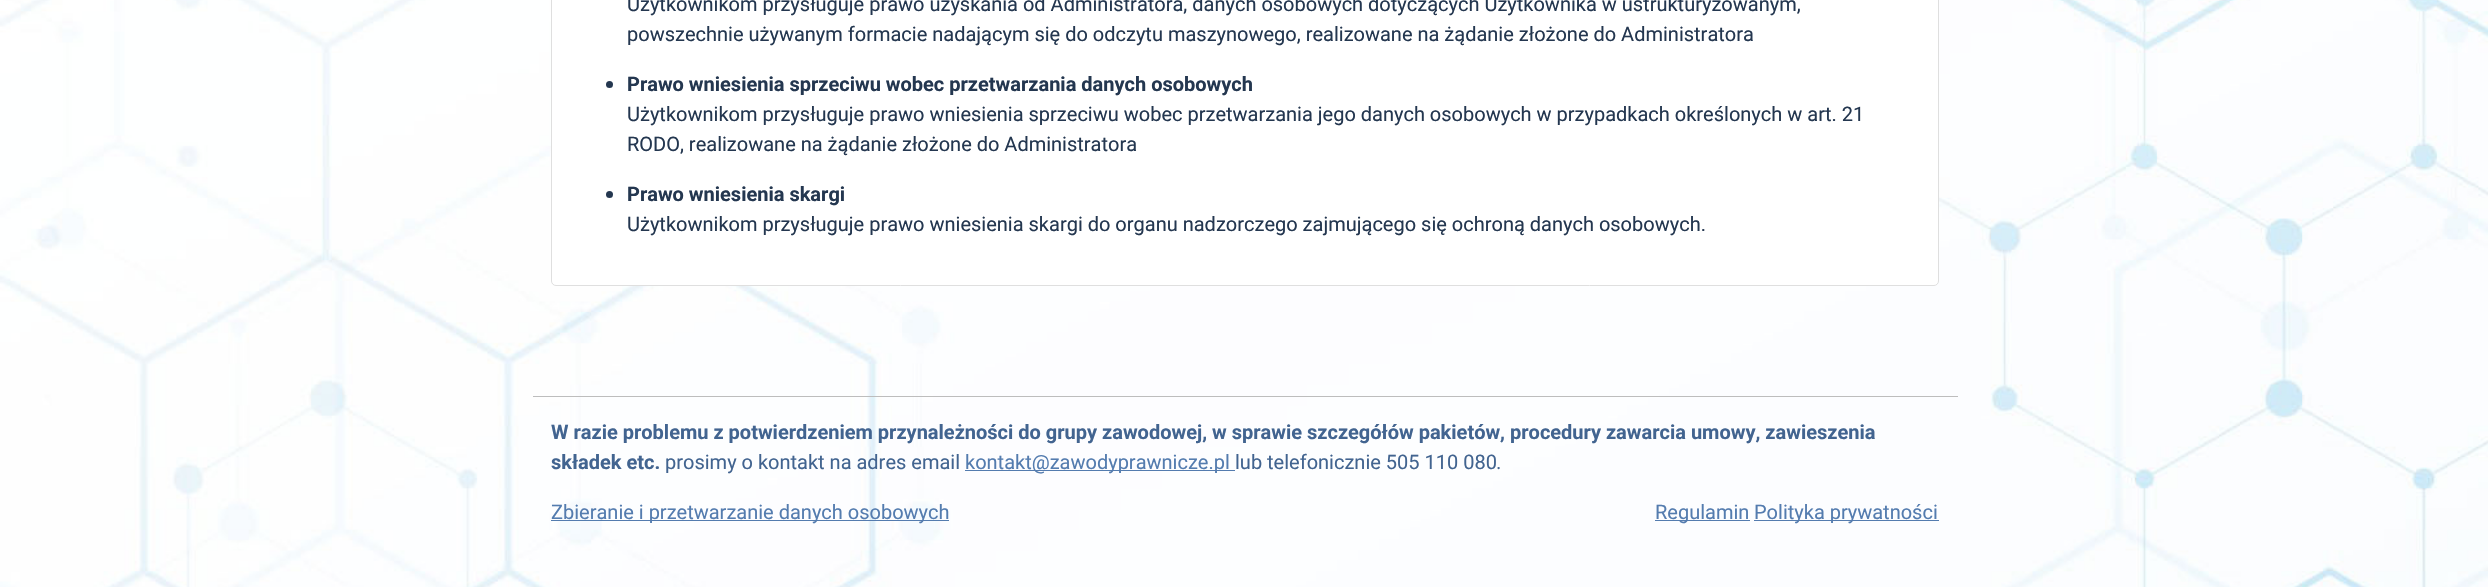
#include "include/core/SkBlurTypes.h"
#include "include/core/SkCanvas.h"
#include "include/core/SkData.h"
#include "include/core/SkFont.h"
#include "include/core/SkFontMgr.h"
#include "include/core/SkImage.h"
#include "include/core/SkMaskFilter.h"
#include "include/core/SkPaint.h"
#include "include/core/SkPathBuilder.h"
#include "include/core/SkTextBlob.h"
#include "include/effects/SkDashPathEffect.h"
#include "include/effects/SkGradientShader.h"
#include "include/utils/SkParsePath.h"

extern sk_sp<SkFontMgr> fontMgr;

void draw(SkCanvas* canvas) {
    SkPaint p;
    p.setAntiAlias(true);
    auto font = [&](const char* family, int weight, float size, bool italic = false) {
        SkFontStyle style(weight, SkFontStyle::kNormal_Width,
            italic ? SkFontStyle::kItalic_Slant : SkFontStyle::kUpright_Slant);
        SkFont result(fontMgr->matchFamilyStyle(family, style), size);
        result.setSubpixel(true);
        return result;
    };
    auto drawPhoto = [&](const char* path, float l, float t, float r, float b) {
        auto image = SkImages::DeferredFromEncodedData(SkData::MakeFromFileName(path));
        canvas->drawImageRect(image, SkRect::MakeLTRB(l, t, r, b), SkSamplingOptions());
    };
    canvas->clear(0xFFFFFFFF);
    drawPhoto("media/1.png", 0, 0, 2488, 587);
    p.setColor(0xFFFFFFFF);
    canvas->drawRoundRect(SkRect::MakeLTRB(551.5f, -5.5f, 1938.5f, 285.5f), 4.5f, 4.5f, p);
    p.setStyle(SkPaint::kStroke_Style);
    p.setStrokeWidth(1);
    p.setColor(0xFFDFDFDF);
    canvas->drawRoundRect(SkRect::MakeLTRB(551.5f, -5.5f, 1938.5f, 285.5f), 4.5f, 4.5f, p);
    auto font1 = font("Roboto", 400, 20);
    p.setStyle(SkPaint::kFill_Style);
    p.setColor(0xFF243750);
    canvas->drawString("Użytkownikom przysługuje prawo uzyskania od Administratora, danych osobowych dotyczących Użytkownika w ustrukturyzowanym,", 627, 11, font1, p);
    canvas->drawString("powszechnie używanym formacie nadającym się do odczytu maszynowego, realizowane na żądanie złożone do Administratora", 627, 41, font1, p);
    canvas->drawCircle(609.5f, 84.5f, 3.5f, p);
    auto font2 = font("Roboto", 700, 20);
    canvas->drawString("Prawo wniesienia sprzeciwu wobec przetwarzania danych osobowych", 627, 91, font2, p);
    canvas->drawString("Użytkownikom przysługuje prawo wniesienia sprzeciwu wobec przetwarzania jego danych osobowych w przypadkach określonych w art. 21", 627, 121, font1, p);
    canvas->drawString("RODO, realizowane na żądanie złożone do Administratora", 627, 151, font1, p);
    canvas->drawCircle(609.5f, 194.5f, 3.5f, p);
    canvas->drawString("Prawo wniesienia skargi", 627, 201, font2, p);
    canvas->drawString("Użytkownikom przysługuje prawo wniesienia skargi do organu nadzorczego zajmującego się ochroną danych osobowych.", 627, 231, font1, p);
    p.setColor(0xFFBDBDBD);
    canvas->drawRect(SkRect::MakeLTRB(533, 396, 1958, 397), p);
    p.setColor(0xFF426490);
    canvas->drawString("W razie problemu z potwierdzeniem przynależności do grupy zawodowej, w sprawie szczegółów pakietów, procedury zawarcia umowy, zawieszenia", 551, 439, font2, p);
    canvas->drawString("składek etc.", 551, 469, font2, p);
    canvas->drawString("prosimy o kontakt na adres email", 665, 469, font1, p);
    p.setColor(0xFF547CAF);
    canvas->drawRect(SkRect::MakeLTRB(965, 470, 1235, 471), p);
    canvas->drawString("kontakt@zawodyprawnicze.pl", 965, 469, font1, p);
    p.setColor(0xFF426490);
    canvas->drawString("lub telefonicznie 505 110 080", 1235, 469, font1, p);
    auto font3 = font("Roboto", 400, 20, true);
    canvas->drawString(".", 1497, 469, font3, p);
    p.setColor(0xFF547CAF);
    canvas->drawRect(SkRect::MakeLTRB(551, 520, 949, 521), p);
    canvas->drawString("Zbieranie i przetwarzanie danych osobowych", 551, 519, font1, p);
    canvas->drawRect(SkRect::MakeLTRB(1655, 520, 1750, 521), p);
    canvas->drawString("Regulamin", 1655, 519, font1, p);
    canvas->drawRect(SkRect::MakeLTRB(1754, 520, 1939, 521), p);
    canvas->drawString("Polityka prywatności", 1754, 519, font1, p);
}
